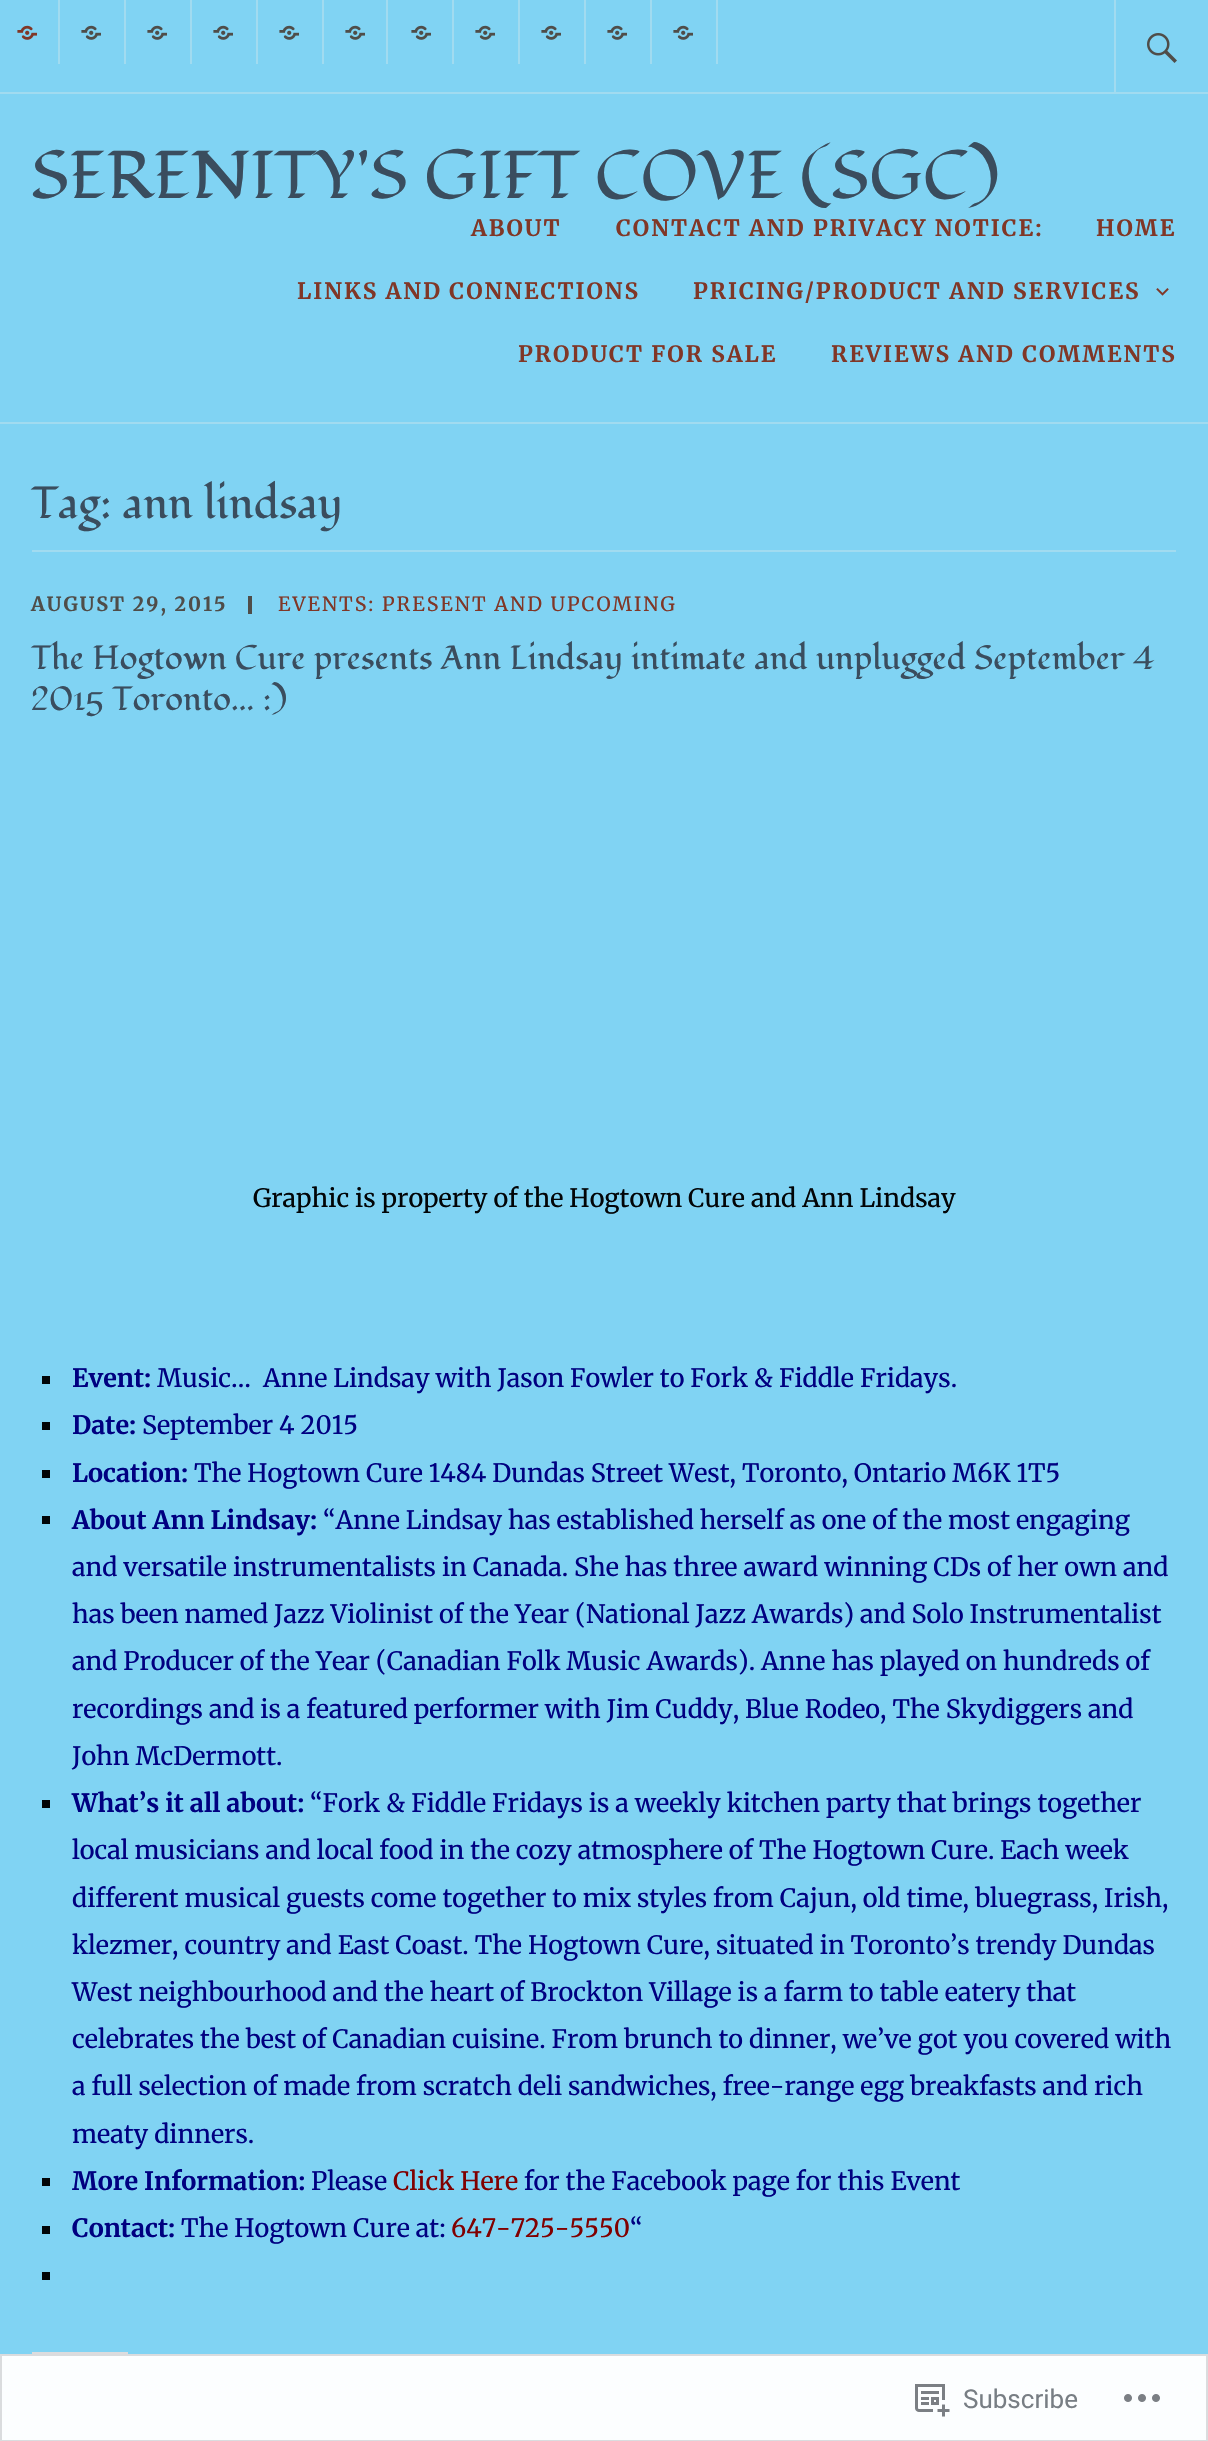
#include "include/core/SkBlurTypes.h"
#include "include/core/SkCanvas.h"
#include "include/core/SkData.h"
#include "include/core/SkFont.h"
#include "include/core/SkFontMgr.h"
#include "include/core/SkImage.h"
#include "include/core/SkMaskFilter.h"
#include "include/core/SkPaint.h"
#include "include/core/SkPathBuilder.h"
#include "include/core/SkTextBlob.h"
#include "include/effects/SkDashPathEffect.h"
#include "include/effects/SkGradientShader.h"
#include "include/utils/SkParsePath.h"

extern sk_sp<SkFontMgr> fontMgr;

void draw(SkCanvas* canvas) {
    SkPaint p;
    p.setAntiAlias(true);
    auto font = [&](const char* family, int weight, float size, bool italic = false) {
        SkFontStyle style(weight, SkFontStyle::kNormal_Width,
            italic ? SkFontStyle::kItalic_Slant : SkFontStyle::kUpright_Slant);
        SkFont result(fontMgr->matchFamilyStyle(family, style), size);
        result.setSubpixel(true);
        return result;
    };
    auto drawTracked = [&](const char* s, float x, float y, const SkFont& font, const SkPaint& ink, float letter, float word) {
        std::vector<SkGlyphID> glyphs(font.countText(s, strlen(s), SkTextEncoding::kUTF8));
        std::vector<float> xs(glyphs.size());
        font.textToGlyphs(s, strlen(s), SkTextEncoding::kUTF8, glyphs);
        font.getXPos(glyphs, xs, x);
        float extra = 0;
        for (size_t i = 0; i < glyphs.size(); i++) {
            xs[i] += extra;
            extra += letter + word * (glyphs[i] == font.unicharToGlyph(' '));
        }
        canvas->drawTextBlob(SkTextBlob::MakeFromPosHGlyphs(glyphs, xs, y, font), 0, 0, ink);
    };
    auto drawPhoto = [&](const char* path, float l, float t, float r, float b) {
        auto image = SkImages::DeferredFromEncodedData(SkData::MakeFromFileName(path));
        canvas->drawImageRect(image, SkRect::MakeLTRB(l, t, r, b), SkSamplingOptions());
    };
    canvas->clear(0xFF80D3F3);
    {
        const struct { float l, t, r, b; SkColor color; } items[] = {
            {0, 422, 1208, 424, 0xFFA1DBF0},
            {0, 92, 1208, 94, 0xFFA1DBF0},
            {58, 0, 60, 64, 0xFFA1DBF0},
        };
        for (auto [l, t, r, b, color] : items) {
            p.setColor(color);
            canvas->drawRect(SkRect::MakeLTRB(l, t, r, b), p);
        }
    }
    drawPhoto("media/1.png", 17, 25, 37, 40);
    canvas->drawRect(SkRect::MakeLTRB(124, 0, 126, 64), p);
    drawPhoto("media/2.png", 81, 25, 101, 40);
    canvas->drawRect(SkRect::MakeLTRB(190, 0, 192, 64), p);
    drawPhoto("media/2.png", 147, 25, 167, 40);
    canvas->drawRect(SkRect::MakeLTRB(256, 0, 258, 64), p);
    drawPhoto("media/2.png", 213, 25, 233, 40);
    canvas->drawRect(SkRect::MakeLTRB(322, 0, 324, 64), p);
    drawPhoto("media/2.png", 279, 25, 299, 40);
    canvas->drawRect(SkRect::MakeLTRB(386, 0, 388, 64), p);
    drawPhoto("media/2.png", 345, 25, 365, 40);
    canvas->drawRect(SkRect::MakeLTRB(452, 0, 454, 64), p);
    drawPhoto("media/2.png", 411, 25, 431, 40);
    canvas->drawRect(SkRect::MakeLTRB(518, 0, 520, 64), p);
    drawPhoto("media/2.png", 475, 25, 495, 40);
    canvas->drawRect(SkRect::MakeLTRB(584, 0, 586, 64), p);
    drawPhoto("media/2.png", 541, 25, 561, 40);
    canvas->drawRect(SkRect::MakeLTRB(650, 0, 652, 64), p);
    drawPhoto("media/2.png", 607, 25, 627, 40);
    canvas->drawRect(SkRect::MakeLTRB(716, 0, 718, 64), p);
    drawPhoto("media/2.png", 673, 25, 693, 40);
    canvas->drawRect(SkRect::MakeLTRB(1114, 0, 1116, 92), p);
    drawPhoto("media/3.png", 1147, 33, 1177, 63);
    auto font1 = font("Fondamento", 400, 67.25f);
    p.setColor(0xFF3A4D5E);
    canvas->drawString("SERENITY'S GIFT COVE (SGC)", 31, 198, font1, p);
    auto font2 = font("Merriweather", 700, 22.4f);
    p.setColor(0xFF803727);
    {
        const struct { const char* s; float x, y; } items[] = {
            {"ABOUT", 471, 236},
            {"CONTACT AND PRIVACY NOTICE:", 616, 236},
            {"HOME", 1096, 236},
            {"LINKS AND CONNECTIONS", 297, 299},
            {"PRICING/PRODUCT AND SERVICES", 693, 299},
        };
        for (auto [s, x, y] : items) {
            drawTracked(s, x, y, font2, p, 2, 0);
        }
    }
    drawPhoto("media/4.png", 1156, 288, 1169, 296);
    drawTracked("PRODUCT FOR SALE", 518, 362, font2, p, 2, 0);
    drawTracked("REVIEWS AND COMMENTS", 831, 362, font2, p, 2, 0);
    p.setColor(0xFFA1DBF0);
    canvas->drawRect(SkRect::MakeLTRB(32, 550, 1176, 552), p);
    auto font3 = font("Fondamento", 400, 44.75f);
    p.setColor(0xFF3A4D5E);
    canvas->drawString("Tag: ann lindsay", 31, 518, font3, p);
    auto font4 = font("Merriweather", 700, 19.6f);
    p.setColor(0xFF4F4D49);
    drawTracked("AUGUST 29, 2015", 31, 611, font4, p, 2, 0);
    canvas->drawRect(SkRect::MakeLTRB(248, 596, 252, 614), p);
    auto font5 = font("Merriweather", 400, 19.6f);
    p.setColor(0xFF803727);
    drawTracked("EVENTS: PRESENT AND UPCOMING", 278, 611, font5, p, 2, 0);
    auto font6 = font("Fondamento", 400, 33.6f);
    p.setColor(0xFF3A4D5E);
    drawTracked("The Hogtown Cure presents Ann Lindsay intimate and unplugged September 4", 31, 669, font6, p, 0, -0.1f);
    canvas->drawString("2015 Toronto… :)", 31, 710, font6, p);
    auto font7 = font("Merriweather", 400, 25.2f);
    p.setColor(0xFF020507);
    canvas->drawString("Graphic is property of the Hogtown Cure and Ann Lindsay", 253, 1207, font7, p);
    canvas->drawRect(SkRect::MakeLTRB(42, 1376, 50, 1384), p);
    auto font8 = font("Merriweather", 700, 25.2f);
    p.setColor(0xFF000080);
    canvas->drawString("Event:", 72, 1387, font8, p);
    canvas->drawString("Music…", 157, 1387, font7, p);
    canvas->drawString("Anne Lindsay with Jason Fowler to Fork & Fiddle Fridays.", 263, 1387, font7, p);
    p.setColor(0xFF020507);
    canvas->drawRect(SkRect::MakeLTRB(42, 1422, 50, 1430), p);
    p.setColor(0xFF000080);
    canvas->drawString("Date:", 72, 1434, font8, p);
    canvas->drawString("September 4 2015", 142, 1434, font7, p);
    p.setColor(0xFF020507);
    canvas->drawRect(SkRect::MakeLTRB(42, 1470, 50, 1478), p);
    p.setColor(0xFF000080);
    canvas->drawString("Location:", 72, 1482, font8, p);
    canvas->drawString("The Hogtown Cure 1484 Dundas Street West, Toronto, Ontario M6K 1T5", 194, 1482, font7, p);
    p.setColor(0xFF020507);
    canvas->drawRect(SkRect::MakeLTRB(42, 1516, 50, 1524), p);
    p.setColor(0xFF000080);
    canvas->drawString("About Ann Lindsay:", 72, 1529, font8, p);
    {
        const struct { const char* s; float x, y; } items[] = {
            {"“Anne Lindsay has established herself as one of the most engaging", 323, 1529},
            {"and versatile instrumentalists in Canada. She has three award winning CDs of her own and", 72, 1576},
            {"has been named Jazz Violinist of the Year (National Jazz Awards) and Solo Instrumentalist", 72, 1623},
            {"and Producer of the Year (Canadian Folk Music Awards). Anne has played on hundreds of", 72, 1670},
            {"recordings and is a featured performer with Jim Cuddy, Blue Rodeo, The Skydiggers and", 72, 1718},
            {"John McDermott.", 72, 1765},
        };
        for (auto [s, x, y] : items) {
            canvas->drawString(s, x, y, font7, p);
        }
    }
    p.setColor(0xFF020507);
    canvas->drawRect(SkRect::MakeLTRB(42, 1800, 50, 1808), p);
    p.setColor(0xFF000080);
    canvas->drawString("What’s it all about:", 72, 1812, font8, p);
    {
        const struct { const char* s; float x, y; } items[] = {
            {"“Fork & Fiddle Fridays is a weekly kitchen party that brings together", 310, 1812},
            {"local musicians and local food in the cozy atmosphere of The Hogtown Cure. Each week", 72, 1859},
            {"different musical guests come together to mix styles from Cajun, old time, bluegrass, Irish,", 72, 1907},
            {"klezmer, country and East Coast. The Hogtown Cure, situated in Toronto’s trendy Dundas", 72, 1954},
            {"West neighbourhood and the heart of Brockton Village is a farm to table eatery that", 72, 2001},
            {"celebrates the best of Canadian cuisine. From brunch to dinner, we’ve got you covered with", 72, 2048},
            {"a full selection of made from scratch deli sandwiches, free-range egg breakfasts and rich", 72, 2095},
            {"meaty dinners.", 72, 2143},
        };
        for (auto [s, x, y] : items) {
            canvas->drawString(s, x, y, font7, p);
        }
    }
    p.setColor(0xFF020507);
    canvas->drawRect(SkRect::MakeLTRB(42, 2178, 50, 2186), p);
    p.setColor(0xFF000080);
    canvas->drawString("More Information:", 72, 2190, font8, p);
    canvas->drawString("Please", 311, 2190, font7, p);
    p.setColor(0xFF800000);
    canvas->drawString("Click Here", 393, 2190, font7, p);
    p.setColor(0xFF000080);
    canvas->drawString("for the Facebook page for this Event", 524, 2190, font7, p);
    p.setColor(0xFF020507);
    canvas->drawRect(SkRect::MakeLTRB(42, 2226, 50, 2234), p);
    p.setColor(0xFF000080);
    canvas->drawString("Contact:", 72, 2237, font8, p);
    canvas->drawString("The Hogtown Cure at:", 181, 2237, font7, p);
    p.setColor(0xFF800000);
    canvas->drawString("647-725-5550", 451, 2237, font7, p);
    p.setColor(0xFF000080);
    canvas->drawString("“", 630, 2237, font7, p);
    p.setColor(0xFF020507);
    canvas->drawRect(SkRect::MakeLTRB(42, 2272, 50, 2280), p);
    p.setColor(0xFFDCDCDE);
    canvas->drawRect(SkRect::MakeLTRB(32, 2352, 128, 2354), p);
    p.setColor(0xFFFCFEFF);
    canvas->drawRect(SkRect::MakeLTRB(1, 2355, 1207, 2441), p);
    p.setStyle(SkPaint::kStroke_Style);
    p.setStrokeWidth(2);
    p.setColor(0xFFDADCDE);
    canvas->drawRect(SkRect::MakeLTRB(1, 2355, 1207, 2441), p);
    drawPhoto("media/5.png", 915, 2384, 950, 2417);
    auto font9 = font("Roboto", 400, 26);
    p.setStyle(SkPaint::kFill_Style);
    p.setColor(0xFF787E84);
    canvas->drawString("Subscribe", 963, 2408, font9, p);
    drawPhoto("media/6.png", 1124, 2394, 1160, 2402);
}
